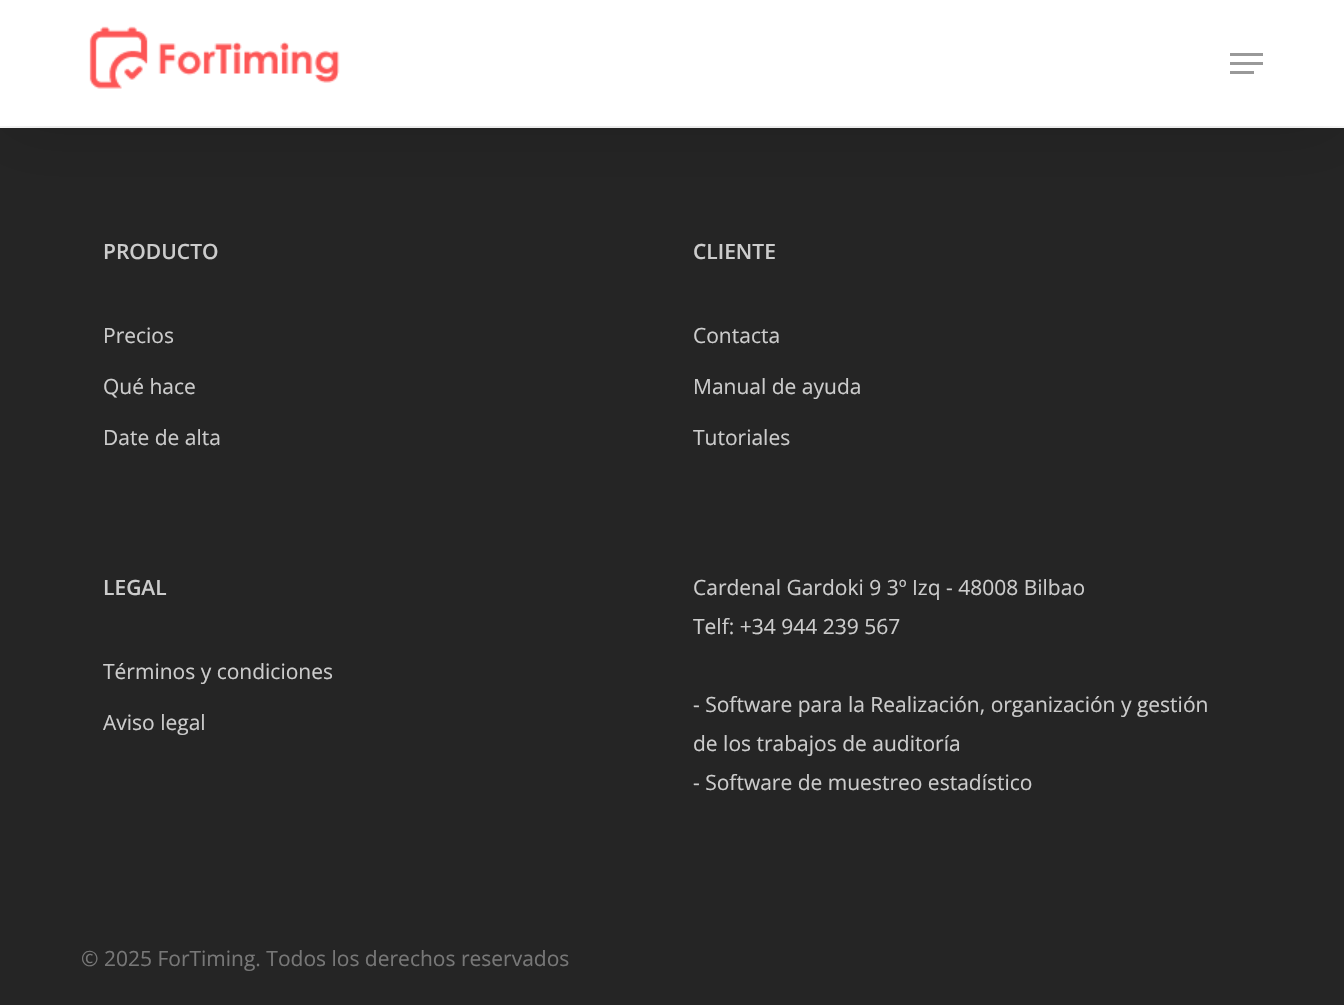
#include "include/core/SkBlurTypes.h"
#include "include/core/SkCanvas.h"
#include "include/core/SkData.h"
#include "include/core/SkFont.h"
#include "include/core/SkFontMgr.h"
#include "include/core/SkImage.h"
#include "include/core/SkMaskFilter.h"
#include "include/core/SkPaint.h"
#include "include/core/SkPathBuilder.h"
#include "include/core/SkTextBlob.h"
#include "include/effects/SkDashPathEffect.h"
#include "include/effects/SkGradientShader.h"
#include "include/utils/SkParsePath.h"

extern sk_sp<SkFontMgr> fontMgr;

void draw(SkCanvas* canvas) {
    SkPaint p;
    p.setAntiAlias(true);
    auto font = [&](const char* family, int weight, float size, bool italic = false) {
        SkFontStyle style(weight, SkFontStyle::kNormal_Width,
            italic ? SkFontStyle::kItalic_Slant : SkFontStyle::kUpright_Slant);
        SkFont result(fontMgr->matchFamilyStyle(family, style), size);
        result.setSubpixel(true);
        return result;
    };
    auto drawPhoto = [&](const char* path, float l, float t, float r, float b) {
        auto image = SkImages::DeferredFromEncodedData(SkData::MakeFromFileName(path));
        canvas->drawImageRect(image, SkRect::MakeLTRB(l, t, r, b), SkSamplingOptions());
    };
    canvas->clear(0xFFFFFFFF);
    p.setColor(0xFF252525);
    canvas->drawRect(SkRect::MakeLTRB(0, 128, 1344, 1005), p);
    p.setColor(0x26000000);
    p.setMaskFilter(SkMaskFilter::MakeBlur(kNormal_SkBlurStyle, 34));
    canvas->drawRect(SkRect::MakeLTRB(0, 5, 1344, 131), p);
    p.setMaskFilter(nullptr);
    p.setColor(0xFFFFFFFF);
    canvas->drawRect(SkRect::MakeLTRB(0, 0, 1344, 126), p);
    drawPhoto("media/1.png", 89, 26, 340, 89);
    {
        const struct { float l, t, r, b; SkColor color; } items[] = {
            {1230, 53, 1263, 56, 0xFF999999},
            {1230, 71, 1254, 74, 0xFF999999},
            {1230, 62, 1263, 65, 0xFF999999},
        };
        for (auto [l, t, r, b, color] : items) {
            p.setColor(color);
            canvas->drawRect(SkRect::MakeLTRB(l, t, r, b), p);
        }
    }
    auto font1 = font("Open Sans", 600, 21);
    p.setColor(0xFFCCCCCC);
    canvas->drawString("PRODUCTO", 103, 259, font1, p);
    auto font2 = font("Open Sans", 400, 21);
    {
        const struct { const char* s; float x, y; } items[] = {
            {"Precios", 103, 343},
            {"Qué hace", 103, 394},
            {"Date de alta", 103, 445},
        };
        for (auto [s, x, y] : items) {
            canvas->drawString(s, x, y, font2, p);
        }
    }
    canvas->drawString("CLIENTE", 693, 259, font1, p);
    {
        const struct { const char* s; float x, y; } items[] = {
            {"Contacta", 693, 343},
            {"Manual de ayuda", 693, 394},
            {"Tutoriales", 693, 445},
        };
        for (auto [s, x, y] : items) {
            canvas->drawString(s, x, y, font2, p);
        }
    }
    canvas->drawString("LEGAL", 103, 595, font1, p);
    {
        const struct { const char* s; float x, y; } items[] = {
            {"Términos y condiciones", 103, 679},
            {"Aviso legal", 103, 730},
            {"Cardenal Gardoki 9 3º Izq - 48008 Bilbao", 693, 595},
            {"Telf: +34 944 239 567", 693, 634},
            {"- Software para la Realización, organización y gestión", 693, 712},
            {"de los trabajos de auditoría", 693, 751},
            {"- Software de muestreo estadístico", 693, 790},
        };
        for (auto [s, x, y] : items) {
            canvas->drawString(s, x, y, font2, p);
        }
    }
    p.setColor(0xFF777777);
    canvas->drawString("© 2025 ForTiming. Todos los derechos reservados", 81, 966, font2, p);
}
